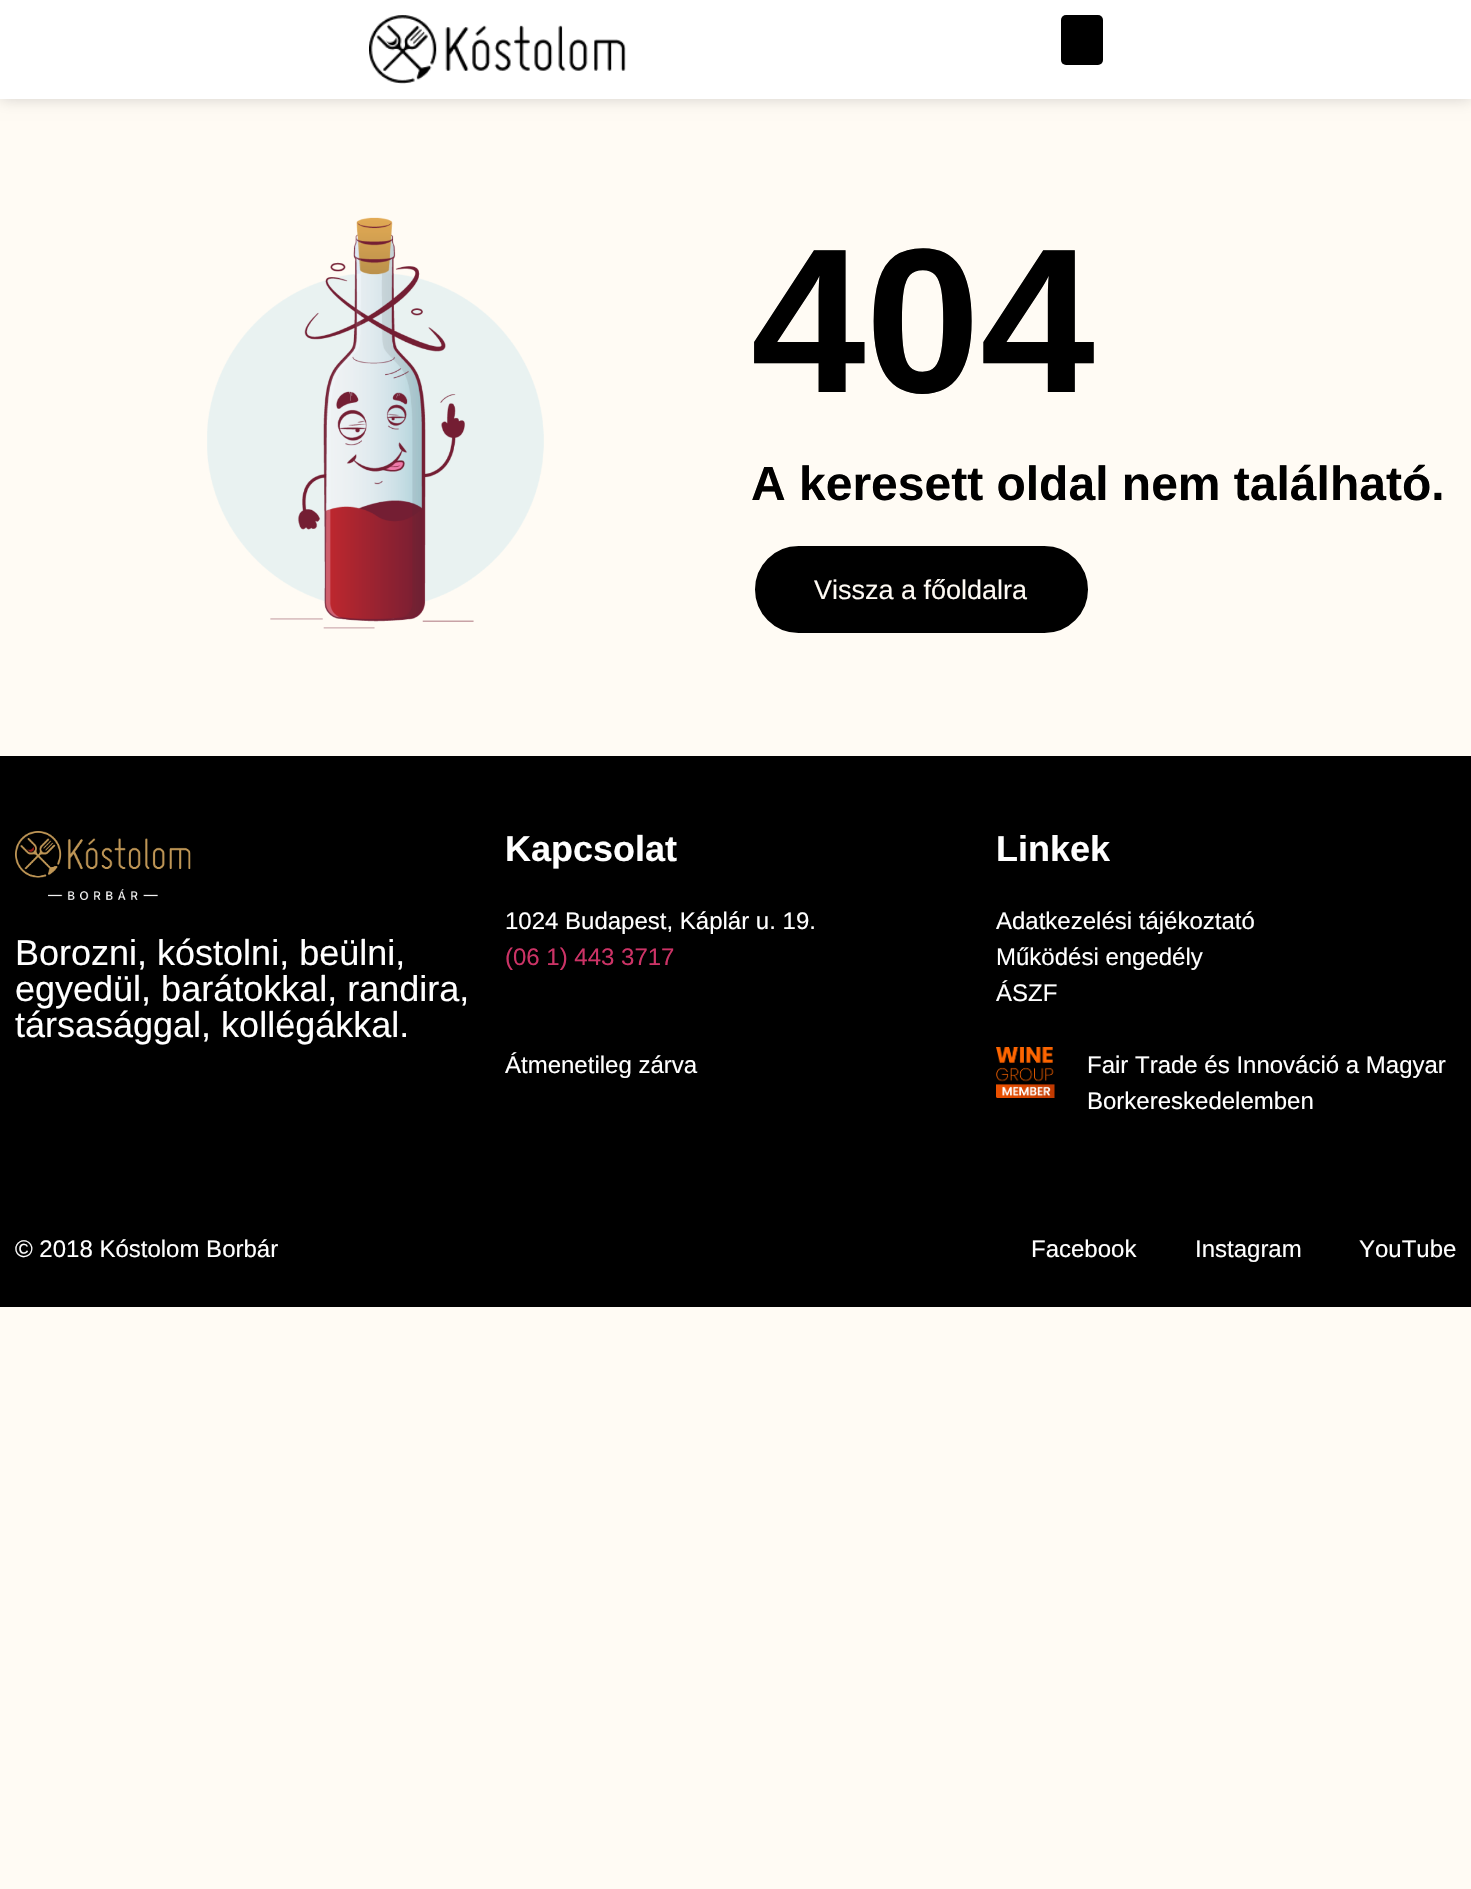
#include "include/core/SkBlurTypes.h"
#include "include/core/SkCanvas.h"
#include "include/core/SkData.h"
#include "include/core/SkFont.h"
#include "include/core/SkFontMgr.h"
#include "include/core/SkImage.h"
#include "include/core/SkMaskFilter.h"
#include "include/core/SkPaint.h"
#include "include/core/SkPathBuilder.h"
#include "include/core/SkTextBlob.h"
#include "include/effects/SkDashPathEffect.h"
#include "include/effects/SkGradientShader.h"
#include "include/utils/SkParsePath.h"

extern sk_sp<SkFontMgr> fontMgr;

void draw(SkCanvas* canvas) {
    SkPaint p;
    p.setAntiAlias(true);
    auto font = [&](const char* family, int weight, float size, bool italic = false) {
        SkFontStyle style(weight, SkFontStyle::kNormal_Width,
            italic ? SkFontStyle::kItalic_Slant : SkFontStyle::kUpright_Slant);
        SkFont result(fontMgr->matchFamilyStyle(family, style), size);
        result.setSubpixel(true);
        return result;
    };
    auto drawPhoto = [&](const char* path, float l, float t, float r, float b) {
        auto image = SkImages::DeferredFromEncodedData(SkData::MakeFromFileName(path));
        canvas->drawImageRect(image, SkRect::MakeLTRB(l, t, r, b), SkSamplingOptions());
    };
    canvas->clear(0xFFFFFBF4);
    p.setColor(0x2B000000);
    p.setMaskFilter(SkMaskFilter::MakeBlur(kNormal_SkBlurStyle, 7.5f));
    canvas->drawRect(SkRect::MakeLTRB(0, 0, 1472, 99), p);
    p.setMaskFilter(nullptr);
    p.setColor(0xFFFFFFFF);
    canvas->drawRect(SkRect::MakeLTRB(0, 0, 1471, 99), p);
    drawPhoto("media/1.png", 369, 15, 626, 84);
    p.setColor(0xFF000000);
    canvas->drawRoundRect(SkRect::MakeLTRB(1061, 15, 1103, 65), 5, 5, p);
    drawPhoto("media/2.png", 207, 217, 544, 629);
    auto font1 = font("Liberation Sans", 700, 206);
    canvas->drawString("404", 751, 392, font1, p);
    auto font2 = font("Liberation Sans", 700, 48);
    canvas->drawString("A keresett oldal nem található.", 751, 500, font2, p);
    canvas->drawRoundRect(SkRect::MakeLTRB(753.5f, 544.5f, 1089.5f, 634.5f), 45, 45, p);
    p.setStyle(SkPaint::kStroke_Style);
    p.setStrokeWidth(3);
    p.setColor(0xFFFFFBF4);
    canvas->drawRoundRect(SkRect::MakeLTRB(753.5f, 544.5f, 1089.5f, 634.5f), 45, 45, p);
    auto font3 = font("Liberation Sans", 400, 27);
    p.setStyle(SkPaint::kFill_Style);
    canvas->drawString("Vissza a főoldalra", 814, 599, font3, p);
    p.setColor(0xFF000000);
    canvas->drawRect(SkRect::MakeLTRB(0, 756, 1471, 1307), p);
    drawPhoto("media/3.png", 15, 831, 191, 900);
    auto font4 = font("Liberation Sans", 400, 36);
    p.setColor(0xFFFFFFFF);
    {
        const struct { const char* s; float x, y; } items[] = {
            {"Borozni, kóstolni, beülni,", 15, 965},
            {"egyedül, barátokkal, randira,", 15, 1001},
            {"társasággal, kollégákkal.", 15, 1037},
        };
        for (auto [s, x, y] : items) {
            canvas->drawString(s, x, y, font4, p);
        }
    }
    auto font5 = font("Liberation Sans", 700, 36);
    canvas->drawString("Kapcsolat", 505, 861, font5, p);
    auto font6 = font("Liberation Sans", 400, 24);
    canvas->drawString("1024 Budapest, Káplár u. 19.", 505, 929, font6, p);
    p.setColor(0xFFCC3366);
    canvas->drawString("(06 1) 443 3717", 505, 965, font6, p);
    p.setColor(0xFFFFFFFF);
    canvas->drawString("Átmenetileg zárva", 505, 1073, font6, p);
    canvas->drawString("Linkek", 996, 861, font5, p);
    {
        const struct { const char* s; float x, y; } items[] = {
            {"Adatkezelési tájékoztató", 996, 929},
            {"Működési engedély", 996, 965},
            {"ÁSZF", 996, 1001},
        };
        for (auto [s, x, y] : items) {
            canvas->drawString(s, x, y, font6, p);
        }
    }
    drawPhoto("media/4.png", 996, 1047, 1055, 1098);
    {
        const struct { const char* s; float x, y; } items[] = {
            {"Fair Trade és Innováció a Magyar", 1087, 1073},
            {"Borkereskedelemben", 1087, 1109},
            {"© 2018 Kóstolom Borbár", 15, 1257},
            {"Facebook", 1031, 1257},
            {"Instagram", 1195, 1257},
            {"YouTube", 1359, 1257},
        };
        for (auto [s, x, y] : items) {
            canvas->drawString(s, x, y, font6, p);
        }
    }
}
